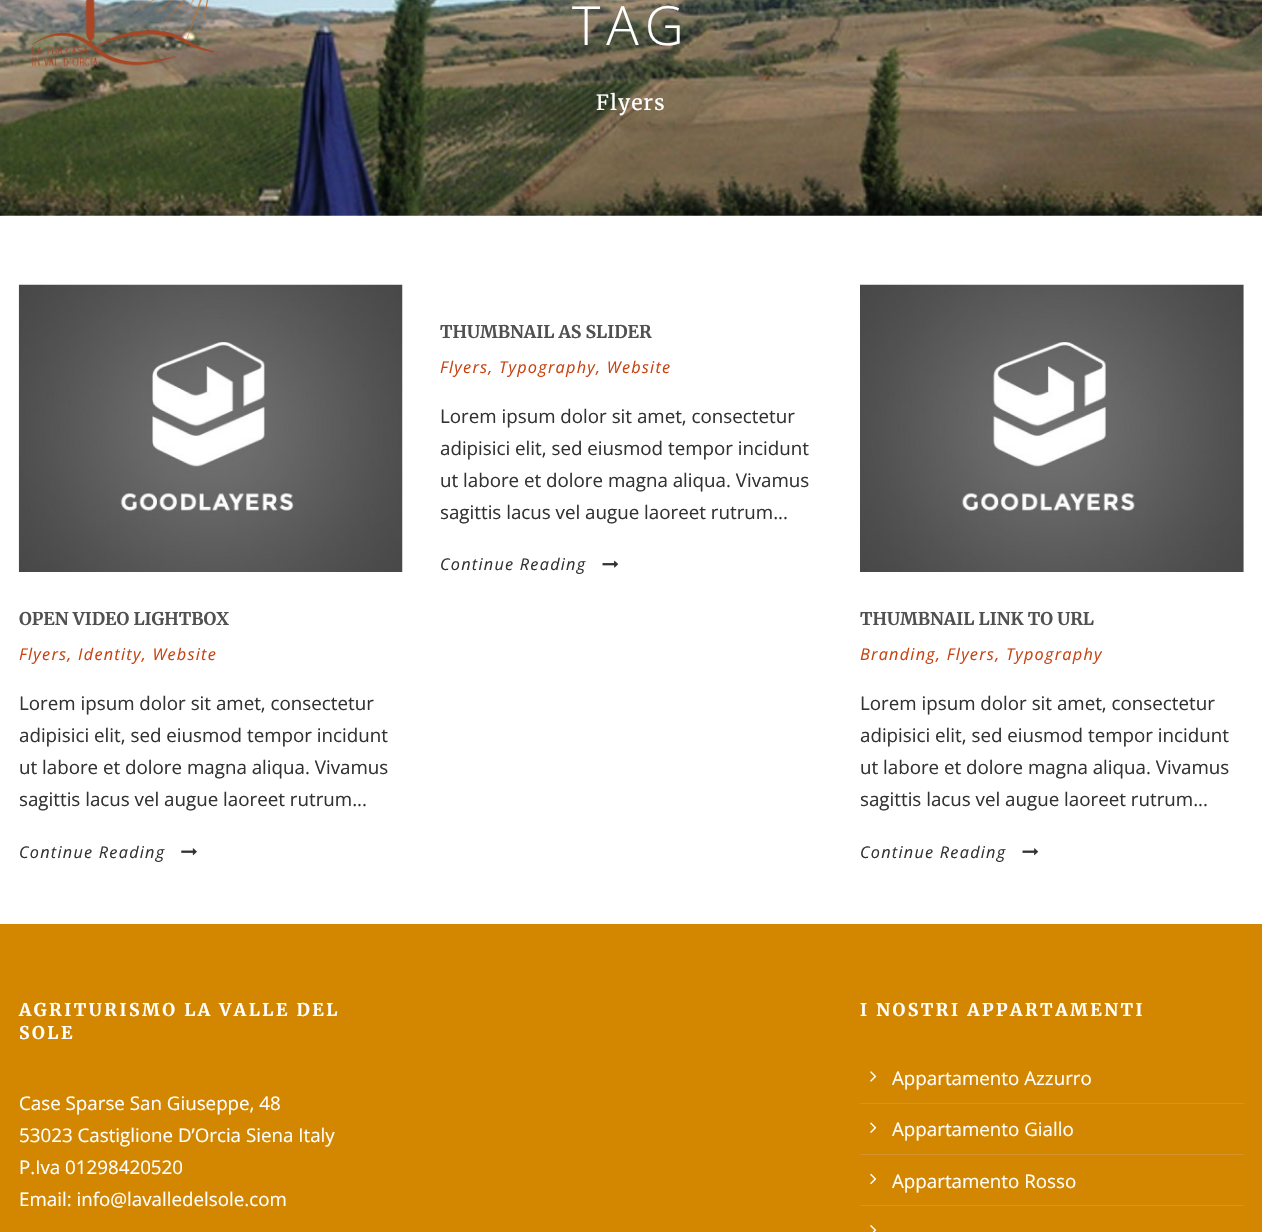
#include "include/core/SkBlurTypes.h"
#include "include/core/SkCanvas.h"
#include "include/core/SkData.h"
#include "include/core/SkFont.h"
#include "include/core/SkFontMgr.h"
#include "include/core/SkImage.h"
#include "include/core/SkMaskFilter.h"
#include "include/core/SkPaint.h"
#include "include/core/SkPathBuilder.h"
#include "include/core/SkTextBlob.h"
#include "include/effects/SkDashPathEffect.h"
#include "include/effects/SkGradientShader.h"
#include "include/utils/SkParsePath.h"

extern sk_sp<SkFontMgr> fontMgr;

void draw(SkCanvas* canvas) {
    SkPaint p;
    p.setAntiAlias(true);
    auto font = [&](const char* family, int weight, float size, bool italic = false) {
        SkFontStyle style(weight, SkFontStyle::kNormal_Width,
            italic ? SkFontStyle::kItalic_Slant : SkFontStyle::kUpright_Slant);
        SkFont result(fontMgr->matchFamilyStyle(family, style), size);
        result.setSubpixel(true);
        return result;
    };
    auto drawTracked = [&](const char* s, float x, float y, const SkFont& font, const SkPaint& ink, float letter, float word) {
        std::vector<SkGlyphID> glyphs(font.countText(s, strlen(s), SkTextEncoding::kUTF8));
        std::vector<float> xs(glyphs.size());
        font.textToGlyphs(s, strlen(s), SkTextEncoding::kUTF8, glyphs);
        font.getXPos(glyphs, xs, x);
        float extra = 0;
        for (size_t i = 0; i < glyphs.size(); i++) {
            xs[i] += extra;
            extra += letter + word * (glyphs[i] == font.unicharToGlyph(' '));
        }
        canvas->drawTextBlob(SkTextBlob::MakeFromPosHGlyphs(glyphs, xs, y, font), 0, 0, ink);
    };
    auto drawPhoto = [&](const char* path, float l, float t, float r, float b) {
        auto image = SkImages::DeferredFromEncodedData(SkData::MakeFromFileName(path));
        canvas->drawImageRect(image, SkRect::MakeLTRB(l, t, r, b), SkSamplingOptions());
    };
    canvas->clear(0xFFFFFFFF);
    drawPhoto("media/2.png", 0, 0, 1262, 216);
    drawPhoto("media/1.png", 31, 0, 220, 67);
    auto font1 = font("Open Sans", 300, 54);
    p.setColor(0xFFFFFFFF);
    drawTracked("TAG", 572, 45, font1, p, 6, 0);
    auto font2 = font("Merriweather", 400, 21);
    drawTracked("Flyers", 596, 110, font2, p, 1.25f, 0);
    auto font3 = font("Merriweather", 700, 17.5f);
    p.setColor(0xFF515151);
    canvas->drawString("THUMBNAIL AS SLIDER", 440, 338, font3, p);
    auto font4 = font("Open Sans", 400, 16.25f, true);
    p.setColor(0xFFC74311);
    drawTracked("Flyers, Typography, Website", 440, 373, font4, p, 1.25f, 0);
    auto font5 = font("Open Sans", 400, 18.75f);
    p.setColor(0xFF333333);
    {
        const struct { const char* s; float x, y; } items[] = {
            {"Lorem ipsum dolor sit amet, consectetur", 440, 423},
            {"adipisici elit, sed eiusmod tempor incidunt", 440, 455},
            {"ut labore et dolore magna aliqua. Vivamus", 440, 487},
            {"sagittis lacus vel augue laoreet rutrum...", 440, 519},
        };
        for (auto [s, x, y] : items) {
            canvas->drawString(s, x, y, font5, p);
        }
    }
    drawTracked("Continue Reading", 440, 570, font4, p, 1.25f, 0);
    drawPhoto("media/3.png", 602, 560, 619, 568);
    drawPhoto("media/4.png", 18, 284, 403, 572);
    p.setColor(0xFF515151);
    canvas->drawString("OPEN VIDEO LIGHTBOX", 19, 625, font3, p);
    p.setColor(0xFFC74311);
    drawTracked("Flyers, Identity, Website", 19, 660, font4, p, 1.25f, 0);
    p.setColor(0xFF333333);
    {
        const struct { const char* s; float x, y; } items[] = {
            {"Lorem ipsum dolor sit amet, consectetur", 19, 710},
            {"adipisici elit, sed eiusmod tempor incidunt", 19, 742},
            {"ut labore et dolore magna aliqua. Vivamus", 19, 774},
            {"sagittis lacus vel augue laoreet rutrum...", 19, 806},
        };
        for (auto [s, x, y] : items) {
            canvas->drawString(s, x, y, font5, p);
        }
    }
    drawTracked("Continue Reading", 19, 858, font4, p, 1.25f, 0);
    drawPhoto("media/5.png", 181, 848, 197, 856);
    drawPhoto("media/6.png", 860, 284, 1244, 572);
    p.setColor(0xFF515151);
    canvas->drawString("THUMBNAIL LINK TO URL", 860, 625, font3, p);
    p.setColor(0xFFC74311);
    drawTracked("Branding, Flyers, Typography", 860, 660, font4, p, 1.25f, 0);
    p.setColor(0xFF333333);
    {
        const struct { const char* s; float x, y; } items[] = {
            {"Lorem ipsum dolor sit amet, consectetur", 860, 710},
            {"adipisici elit, sed eiusmod tempor incidunt", 860, 742},
            {"ut labore et dolore magna aliqua. Vivamus", 860, 774},
            {"sagittis lacus vel augue laoreet rutrum...", 860, 806},
        };
        for (auto [s, x, y] : items) {
            canvas->drawString(s, x, y, font5, p);
        }
    }
    drawTracked("Continue Reading", 860, 858, font4, p, 1.25f, 0);
    drawPhoto("media/7.png", 1022, 848, 1039, 856);
    p.setColor(0xFFD38600);
    canvas->drawRect(SkRect::MakeLTRB(0, 924, 1262, 1232), p);
    p.setColor(0xFFFFFFFF);
    drawTracked("AGRITURISMO LA VALLE DEL", 19, 1016, font3, p, 2.5f, 0);
    drawTracked("SOLE", 19, 1039, font3, p, 2.5f, 0);
    {
        const struct { const char* s; float x, y; } items[] = {
            {"Case Sparse San Giuseppe, 48", 19, 1110},
            {"53023 Castiglione D’Orcia Siena Italy", 19, 1142},
            {"P.Iva 01298420520", 19, 1174},
            {"Email: info@lavalledelsole.com", 19, 1206},
        };
        for (auto [s, x, y] : items) {
            canvas->drawString(s, x, y, font5, p);
        }
    }
    drawTracked("I NOSTRI APPARTAMENTI", 860, 1016, font3, p, 2.5f, 0);
    p.setColor(0xFFD3952A);
    canvas->drawRect(SkRect::MakeLTRB(860, 1103, 1244, 1104), p);
    drawPhoto("media/8.png", 870, 1071, 877, 1082);
    p.setColor(0xFFFFFFFF);
    canvas->drawString("Appartamento Azzurro", 892, 1085, font5, p);
    p.setColor(0xFFD3952A);
    canvas->drawRect(SkRect::MakeLTRB(860, 1154, 1244, 1155), p);
    drawPhoto("media/9.png", 870, 1122, 877, 1133);
    p.setColor(0xFFFFFFFF);
    canvas->drawString("Appartamento Giallo", 892, 1136, font5, p);
    p.setColor(0xFFD3952A);
    canvas->drawRect(SkRect::MakeLTRB(860, 1205, 1244, 1206), p);
    drawPhoto("media/10.png", 870, 1173, 877, 1185);
    p.setColor(0xFFFFFFFF);
    canvas->drawString("Appartamento Rosso", 892, 1188, font5, p);
    drawPhoto("media/11.png", 870, 1225, 877, 1232);
}
